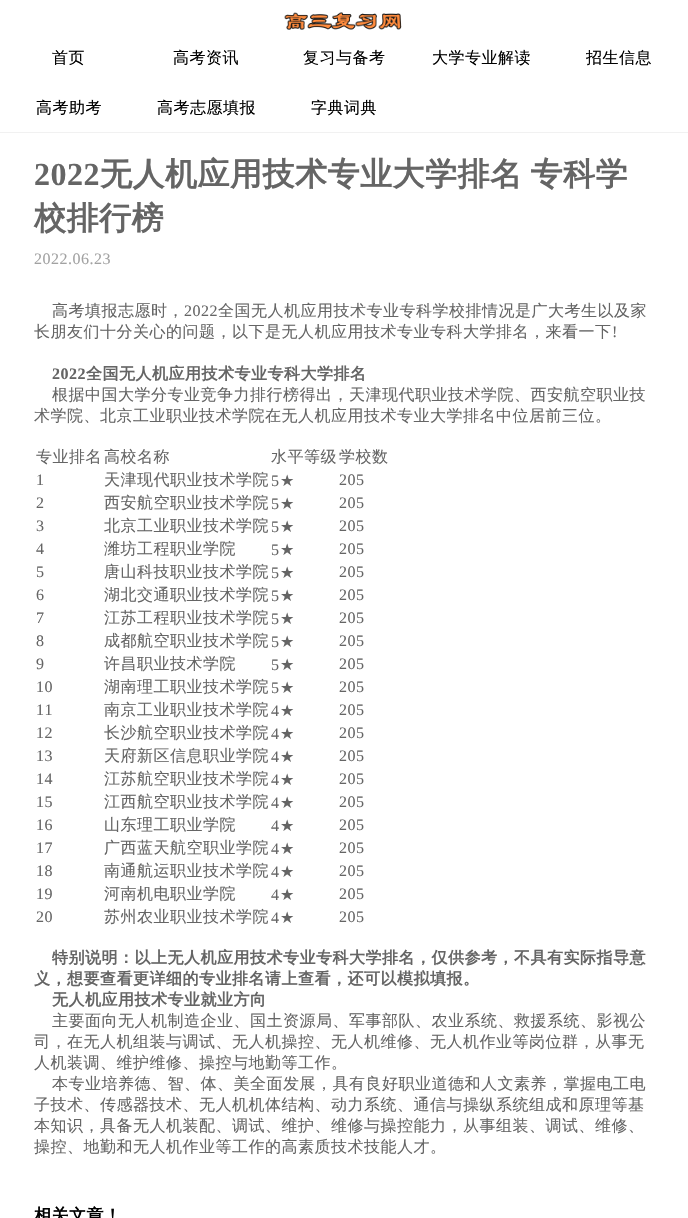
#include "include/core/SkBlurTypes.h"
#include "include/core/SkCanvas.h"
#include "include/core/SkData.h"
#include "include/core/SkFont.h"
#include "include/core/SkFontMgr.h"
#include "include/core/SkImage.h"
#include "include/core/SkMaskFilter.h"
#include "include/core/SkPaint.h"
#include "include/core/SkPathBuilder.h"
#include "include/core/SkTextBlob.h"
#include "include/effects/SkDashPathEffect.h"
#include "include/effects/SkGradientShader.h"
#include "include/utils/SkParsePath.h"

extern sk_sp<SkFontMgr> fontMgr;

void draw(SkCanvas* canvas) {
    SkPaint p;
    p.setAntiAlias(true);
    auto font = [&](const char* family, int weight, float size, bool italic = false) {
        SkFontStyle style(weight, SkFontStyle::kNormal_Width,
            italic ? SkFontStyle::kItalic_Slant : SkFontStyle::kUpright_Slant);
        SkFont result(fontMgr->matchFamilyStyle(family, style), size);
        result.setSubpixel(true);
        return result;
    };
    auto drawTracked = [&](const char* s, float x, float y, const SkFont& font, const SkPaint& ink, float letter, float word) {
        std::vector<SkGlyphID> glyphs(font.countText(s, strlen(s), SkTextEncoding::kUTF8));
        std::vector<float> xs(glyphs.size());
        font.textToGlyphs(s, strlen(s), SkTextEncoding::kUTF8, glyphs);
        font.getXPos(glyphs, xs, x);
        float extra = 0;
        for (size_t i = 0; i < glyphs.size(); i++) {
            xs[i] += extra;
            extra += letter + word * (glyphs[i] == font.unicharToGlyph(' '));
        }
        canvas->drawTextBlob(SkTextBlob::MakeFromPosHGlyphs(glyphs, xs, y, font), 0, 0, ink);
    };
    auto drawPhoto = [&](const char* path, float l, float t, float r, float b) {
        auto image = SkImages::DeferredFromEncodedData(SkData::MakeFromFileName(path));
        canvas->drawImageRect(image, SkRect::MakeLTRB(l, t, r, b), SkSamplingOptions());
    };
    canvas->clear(0xFFFFFFFF);
    p.setColor(0xFFF1F1F1);
    canvas->drawRect(SkRect::MakeLTRB(0, 132, 688, 133), p);
    drawPhoto("media/1.png", 284, 12, 402, 30);
    auto font1 = font("WenQuanYi Zen Hei", 500, 16);
    p.setColor(0xFF000000);
    {
        const struct { const char* s; float x, y; } items[] = {
            {"首页", 52, 63},
            {"高考资讯", 173, 63},
            {"复习与备考", 303, 63},
            {"大学专业解读", 432, 63},
            {"招生信息", 586, 63},
            {"高考助考", 36, 113},
            {"高考志愿填报", 157, 113},
            {"字典词典", 311, 113},
        };
        for (auto [s, x, y] : items) {
            drawTracked(s, x, y, font1, p, 0.5f, 0);
        }
    }
    auto font2 = font("Liberation Serif", 700, 32);
    p.setColor(0xFF656565);
    drawTracked("2022", 34, 185, font2, p, 0.5f, 0);
    auto font3 = font("WenQuanYi Zen Hei", 700, 32);
    drawTracked("无人机应用技术专业大学排名 专科学", 100, 185, font3, p, 0.5f, -2);
    drawTracked("校排行榜", 34, 229, font3, p, 0.5f, 0);
    auto font4 = font("Liberation Serif", 400, 16);
    p.setColor(0xFFA2A2A2);
    drawTracked("2022.06.23", 34, 264, font4, p, 0.5f, 0);
    p.setColor(0xFF656565);
    drawTracked("高考填报志愿时，", 52, 316, font1, p, 0.5f, 0);
    drawTracked("2022", 184, 316, font4, p, 0.5f, 0);
    drawTracked("全国无人机应用技术专业专科学校排情况是广大考生以及家", 218, 316, font1, p, 0.5f, 0);
    drawTracked("长朋友们十分关心的问题，以下是无人机应用技术专业专科大学排名，来看一下", 34, 337, font1, p, 0.5f, 0);
    drawTracked("!", 612, 337, font4, p, 0.5f, 0);
    auto font5 = font("Liberation Serif", 700, 16);
    drawTracked("2022", 52, 379, font5, p, 0.5f, 0);
    auto font6 = font("WenQuanYi Zen Hei", 700, 16);
    drawTracked("全国无人机应用技术专业专科大学排名", 86, 379, font6, p, 0.5f, 0);
    {
        const struct { const char* s; float x, y; } items[] = {
            {"根据中国大学分专业竞争力排行榜得出，天津现代职业技术学院、西安航空职业技", 52, 400},
            {"术学院、北京工业职业技术学院在无人机应用技术专业大学排名中位居前三位。", 34, 421},
            {"专业排名", 36, 462},
            {"高校名称", 104, 462},
            {"水平等级", 271, 462},
            {"学校数", 339, 462},
        };
        for (auto [s, x, y] : items) {
            drawTracked(s, x, y, font1, p, 0.5f, 0);
        }
    }
    drawTracked("1", 36, 485, font4, p, 0.5f, 0);
    drawTracked("天津现代职业技术学院", 104, 485, font1, p, 0.5f, 0);
    drawTracked("5", 271, 486, font4, p, 0.5f, 0);
    auto font7 = font("DejaVu Sans", 400, 16);
    drawTracked("★", 280, 486, font7, p, 0.5f, 0);
    drawTracked("205", 339, 485, font4, p, 0.5f, 0);
    drawTracked("2", 36, 508, font4, p, 0.5f, 0);
    drawTracked("西安航空职业技术学院", 104, 508, font1, p, 0.5f, 0);
    drawTracked("5", 271, 509, font4, p, 0.5f, 0);
    drawTracked("★", 280, 509, font7, p, 0.5f, 0);
    drawTracked("205", 339, 508, font4, p, 0.5f, 0);
    drawTracked("3", 36, 531, font4, p, 0.5f, 0);
    drawTracked("北京工业职业技术学院", 104, 531, font1, p, 0.5f, 0);
    drawTracked("5", 271, 532, font4, p, 0.5f, 0);
    drawTracked("★", 280, 532, font7, p, 0.5f, 0);
    drawTracked("205", 339, 531, font4, p, 0.5f, 0);
    drawTracked("4", 36, 554, font4, p, 0.5f, 0);
    drawTracked("潍坊工程职业学院", 104, 554, font1, p, 0.5f, 0);
    drawTracked("5", 271, 555, font4, p, 0.5f, 0);
    drawTracked("★", 280, 555, font7, p, 0.5f, 0);
    drawTracked("205", 339, 554, font4, p, 0.5f, 0);
    drawTracked("5", 36, 577, font4, p, 0.5f, 0);
    drawTracked("唐山科技职业技术学院", 104, 577, font1, p, 0.5f, 0);
    drawTracked("5", 271, 578, font4, p, 0.5f, 0);
    drawTracked("★", 280, 578, font7, p, 0.5f, 0);
    drawTracked("205", 339, 577, font4, p, 0.5f, 0);
    drawTracked("6", 36, 600, font4, p, 0.5f, 0);
    drawTracked("湖北交通职业技术学院", 104, 600, font1, p, 0.5f, 0);
    drawTracked("5", 271, 601, font4, p, 0.5f, 0);
    drawTracked("★", 280, 601, font7, p, 0.5f, 0);
    drawTracked("205", 339, 600, font4, p, 0.5f, 0);
    drawTracked("7", 36, 623, font4, p, 0.5f, 0);
    drawTracked("江苏工程职业技术学院", 104, 623, font1, p, 0.5f, 0);
    drawTracked("5", 271, 624, font4, p, 0.5f, 0);
    drawTracked("★", 280, 624, font7, p, 0.5f, 0);
    drawTracked("205", 339, 623, font4, p, 0.5f, 0);
    drawTracked("8", 36, 646, font4, p, 0.5f, 0);
    drawTracked("成都航空职业技术学院", 104, 646, font1, p, 0.5f, 0);
    drawTracked("5", 271, 647, font4, p, 0.5f, 0);
    drawTracked("★", 280, 647, font7, p, 0.5f, 0);
    drawTracked("205", 339, 646, font4, p, 0.5f, 0);
    drawTracked("9", 36, 669, font4, p, 0.5f, 0);
    drawTracked("许昌职业技术学院", 104, 669, font1, p, 0.5f, 0);
    drawTracked("5", 271, 670, font4, p, 0.5f, 0);
    drawTracked("★", 280, 670, font7, p, 0.5f, 0);
    drawTracked("205", 339, 669, font4, p, 0.5f, 0);
    drawTracked("10", 36, 692, font4, p, 0.5f, 0);
    drawTracked("湖南理工职业技术学院", 104, 692, font1, p, 0.5f, 0);
    drawTracked("5", 271, 693, font4, p, 0.5f, 0);
    drawTracked("★", 280, 693, font7, p, 0.5f, 0);
    drawTracked("205", 339, 692, font4, p, 0.5f, 0);
    drawTracked("11", 36, 715, font4, p, 0.5f, 0);
    drawTracked("南京工业职业技术学院", 104, 715, font1, p, 0.5f, 0);
    drawTracked("4", 271, 716, font4, p, 0.5f, 0);
    drawTracked("★", 280, 716, font7, p, 0.5f, 0);
    drawTracked("205", 339, 715, font4, p, 0.5f, 0);
    drawTracked("12", 36, 738, font4, p, 0.5f, 0);
    drawTracked("长沙航空职业技术学院", 104, 738, font1, p, 0.5f, 0);
    drawTracked("4", 271, 739, font4, p, 0.5f, 0);
    drawTracked("★", 280, 739, font7, p, 0.5f, 0);
    drawTracked("205", 339, 738, font4, p, 0.5f, 0);
    drawTracked("13", 36, 761, font4, p, 0.5f, 0);
    drawTracked("天府新区信息职业学院", 104, 761, font1, p, 0.5f, 0);
    drawTracked("4", 271, 762, font4, p, 0.5f, 0);
    drawTracked("★", 280, 762, font7, p, 0.5f, 0);
    drawTracked("205", 339, 761, font4, p, 0.5f, 0);
    drawTracked("14", 36, 784, font4, p, 0.5f, 0);
    drawTracked("江苏航空职业技术学院", 104, 784, font1, p, 0.5f, 0);
    drawTracked("4", 271, 785, font4, p, 0.5f, 0);
    drawTracked("★", 280, 785, font7, p, 0.5f, 0);
    drawTracked("205", 339, 784, font4, p, 0.5f, 0);
    drawTracked("15", 36, 807, font4, p, 0.5f, 0);
    drawTracked("江西航空职业技术学院", 104, 807, font1, p, 0.5f, 0);
    drawTracked("4", 271, 808, font4, p, 0.5f, 0);
    drawTracked("★", 280, 808, font7, p, 0.5f, 0);
    drawTracked("205", 339, 807, font4, p, 0.5f, 0);
    drawTracked("16", 36, 830, font4, p, 0.5f, 0);
    drawTracked("山东理工职业学院", 104, 830, font1, p, 0.5f, 0);
    drawTracked("4", 271, 831, font4, p, 0.5f, 0);
    drawTracked("★", 280, 831, font7, p, 0.5f, 0);
    drawTracked("205", 339, 830, font4, p, 0.5f, 0);
    drawTracked("17", 36, 853, font4, p, 0.5f, 0);
    drawTracked("广西蓝天航空职业学院", 104, 853, font1, p, 0.5f, 0);
    drawTracked("4", 271, 854, font4, p, 0.5f, 0);
    drawTracked("★", 280, 854, font7, p, 0.5f, 0);
    drawTracked("205", 339, 853, font4, p, 0.5f, 0);
    drawTracked("18", 36, 876, font4, p, 0.5f, 0);
    drawTracked("南通航运职业技术学院", 104, 876, font1, p, 0.5f, 0);
    drawTracked("4", 271, 877, font4, p, 0.5f, 0);
    drawTracked("★", 280, 877, font7, p, 0.5f, 0);
    drawTracked("205", 339, 876, font4, p, 0.5f, 0);
    drawTracked("19", 36, 899, font4, p, 0.5f, 0);
    drawTracked("河南机电职业学院", 104, 899, font1, p, 0.5f, 0);
    drawTracked("4", 271, 900, font4, p, 0.5f, 0);
    drawTracked("★", 280, 900, font7, p, 0.5f, 0);
    drawTracked("205", 339, 899, font4, p, 0.5f, 0);
    drawTracked("20", 36, 922, font4, p, 0.5f, 0);
    drawTracked("苏州农业职业技术学院", 104, 922, font1, p, 0.5f, 0);
    drawTracked("4", 271, 923, font4, p, 0.5f, 0);
    drawTracked("★", 280, 923, font7, p, 0.5f, 0);
    drawTracked("205", 339, 922, font4, p, 0.5f, 0);
    {
        const struct { const char* s; float x, y; } items[] = {
            {"特别说明：以上无人机应用技术专业专科大学排名，仅供参考，不具有实际指导意", 52, 963},
            {"义，想要查看更详细的专业排名请上查看，还可以模拟填报。", 34, 984},
            {"无人机应用技术专业就业方向", 52, 1005},
        };
        for (auto [s, x, y] : items) {
            drawTracked(s, x, y, font6, p, 0.5f, 0);
        }
    }
    {
        const struct { const char* s; float x, y; } items[] = {
            {"主要面向无人机制造企业、国土资源局、军事部队、农业系统、救援系统、影视公", 52, 1026},
            {"司，在无人机组装与调试、无人机操控、无人机维修、无人机作业等岗位群，从事无", 34, 1047},
            {"人机装调、维护维修、操控与地勤等工作。", 34, 1068},
            {"本专业培养德、智、体、美全面发展，具有良好职业道德和人文素养，掌握电工电", 52, 1089},
            {"子技术、传感器技术、无人机机体结构、动力系统、通信与操纵系统组成和原理等基", 34, 1110},
            {"本知识，具备无人机装配、调试、维护、维修与操控能力，从事组装、调试、维修、", 34, 1131},
            {"操控、地勤和无人机作业等工作的高素质技术技能人才。", 34, 1152},
        };
        for (auto [s, x, y] : items) {
            drawTracked(s, x, y, font1, p, 0.5f, 0);
        }
    }
    auto font8 = font("WenQuanYi Zen Hei", 700, 17);
    p.setColor(0xFF000000);
    drawTracked("相关文章！", 34, 1221, font8, p, 0.5f, 0);
}
